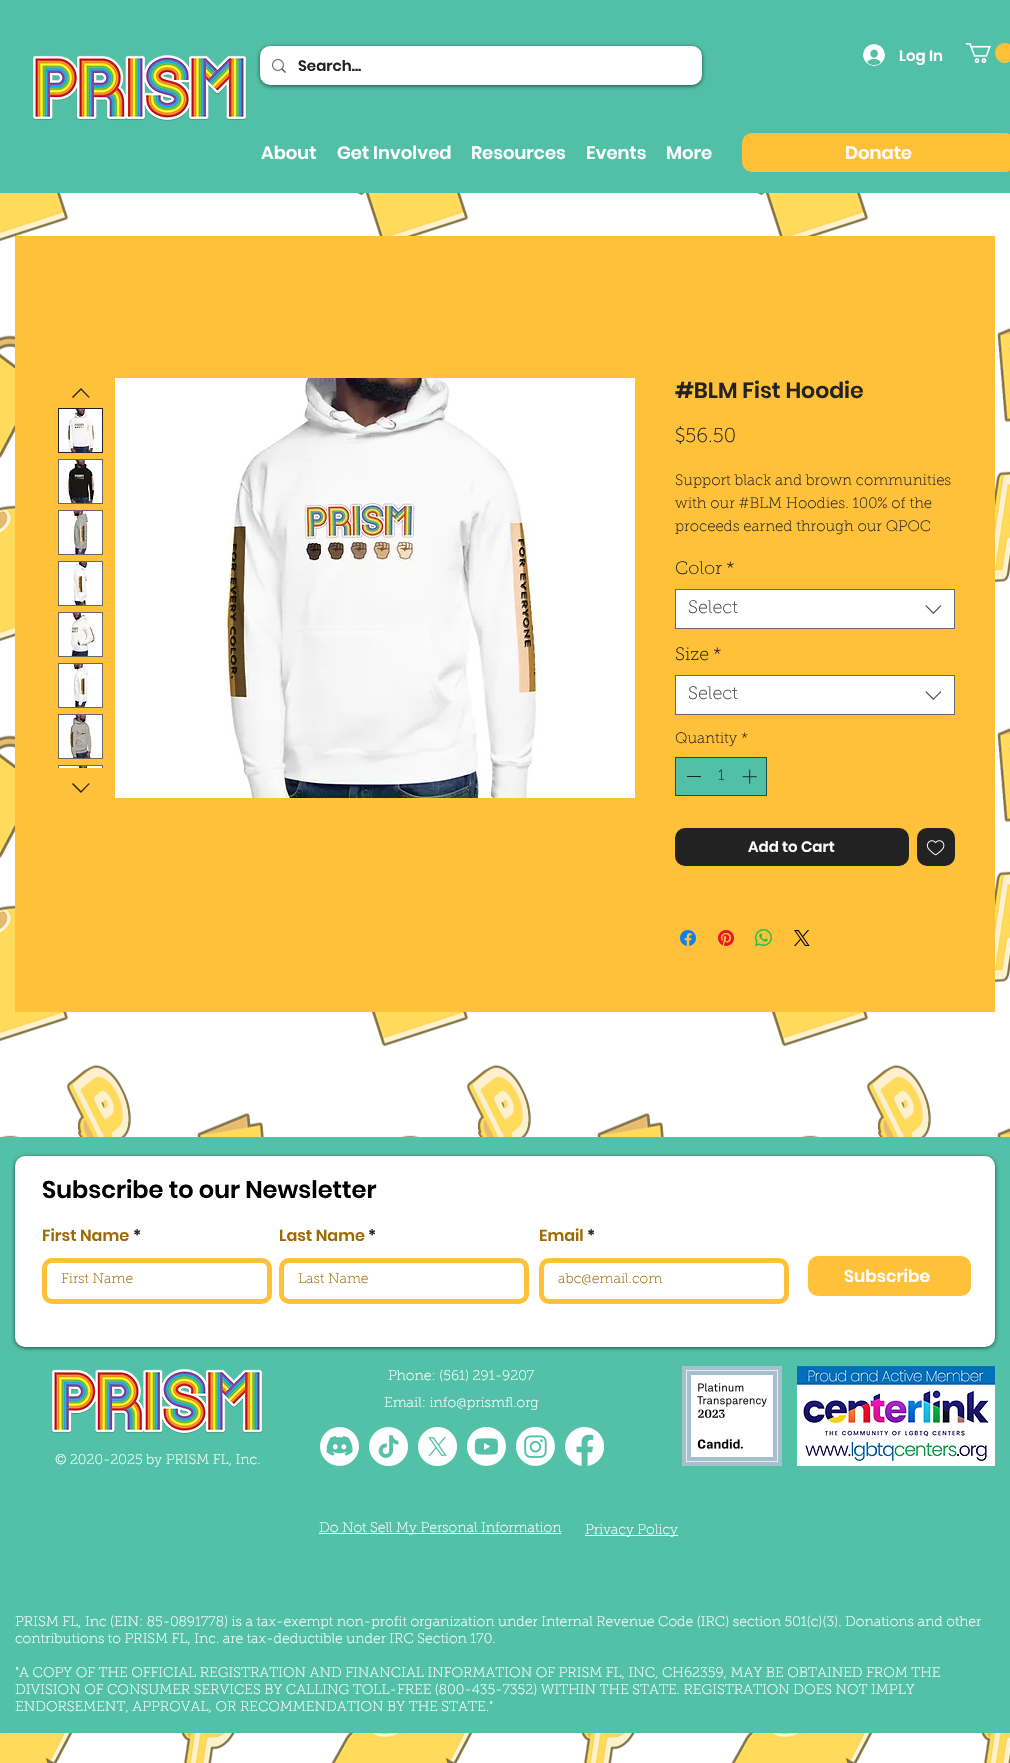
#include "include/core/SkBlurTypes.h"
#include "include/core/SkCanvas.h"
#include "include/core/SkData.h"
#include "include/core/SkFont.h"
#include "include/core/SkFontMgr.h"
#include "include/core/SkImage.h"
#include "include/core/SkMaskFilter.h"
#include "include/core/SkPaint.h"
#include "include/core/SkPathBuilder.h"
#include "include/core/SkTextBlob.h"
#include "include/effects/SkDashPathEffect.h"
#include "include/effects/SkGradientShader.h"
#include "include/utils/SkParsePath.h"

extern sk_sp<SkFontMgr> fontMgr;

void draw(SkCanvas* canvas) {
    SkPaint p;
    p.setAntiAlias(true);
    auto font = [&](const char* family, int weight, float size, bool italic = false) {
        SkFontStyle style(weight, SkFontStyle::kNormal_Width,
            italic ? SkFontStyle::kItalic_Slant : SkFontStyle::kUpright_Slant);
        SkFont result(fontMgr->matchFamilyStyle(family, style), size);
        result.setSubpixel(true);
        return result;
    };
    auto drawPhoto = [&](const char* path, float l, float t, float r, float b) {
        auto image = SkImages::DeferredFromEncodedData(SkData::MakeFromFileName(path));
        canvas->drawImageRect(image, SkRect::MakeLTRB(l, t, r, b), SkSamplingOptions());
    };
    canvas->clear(0xFFFFFFFF);
    p.setColor(0xFF51C0A7);
    canvas->drawRect(SkRect::MakeLTRB(0, 0, 1010, 193), p);
    drawPhoto("media/1.png", 32, 55, 247, 121);
    p.setColor(0x99000000);
    p.setMaskFilter(SkMaskFilter::MakeBlur(kNormal_SkBlurStyle, 2));
    canvas->drawRoundRect(SkRect::MakeLTRB(260, 47, 702, 86), 10, 10, p);
    p.setMaskFilter(nullptr);
    p.setColor(0xFFFFFFFF);
    canvas->drawRoundRect(SkRect::MakeLTRB(260, 46, 702, 85), 10, 10, p);
    drawPhoto("media/2.png", 272, 59, 286, 73);
    auto font1 = font("Poppins", 600, 15);
    p.setColor(0xFF222222);
    canvas->drawString("Search...", 298, 71, font1, p);
    drawPhoto("media/3.png", 863, 44, 885, 66);
    p.setColor(0xFFFFFFFF);
    canvas->drawString("Log In", 899, 61, font1, p);
    drawPhoto("media/4.png", 966, 43, 1010, 63);
    auto font2 = font("Poppins", 600, 18);
    {
        const struct { const char* s; float x, y; } items[] = {
            {"About", 261, 159},
            {"Get Involved", 337, 159},
            {"Resources", 471, 159},
            {"Events", 586, 159},
            {"More", 666, 159},
        };
        for (auto [s, x, y] : items) {
            canvas->drawString(s, x, y, font2, p);
        }
    }
    p.setColor(0xFFFFC038);
    canvas->drawRoundRect(SkRect::MakeLTRB(742, 133, 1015, 172), 10, 10, p);
    p.setColor(0xFFFFFFFF);
    canvas->drawString("Donate", 845, 159, font2, p);
    drawPhoto("media/30.png", 0, 193, 1010, 1763);
    p.setColor(0xFFFFC03A);
    canvas->drawRect(SkRect::MakeLTRB(15, 236, 995, 1012), p);
    p.setColor(0xFF222222);
    canvas->drawPath(SkPathBuilder(SkPathFillType::kEvenOdd).moveTo(81, 388).lineTo(89.5f, 397).lineTo(89, 398).lineTo(81, 390).lineTo(73, 398).lineTo(72, 397).close().detach(), p);
    p.setStyle(SkPaint::kStroke_Style);
    p.setStrokeWidth(1);
    canvas->drawRect(SkRect::MakeLTRB(58.5f, 408.5f, 102.5f, 452.5f), p);
    drawPhoto("media/5.png", 59, 409, 102, 452);
    p.setStyle(SkPaint::kFill_Style);
    p.setColor(0xFF666666);
    canvas->drawRect(SkRect::MakeLTRB(58, 459, 103, 504), p);
    drawPhoto("media/6.png", 59, 460, 102, 503);
    canvas->drawRect(SkRect::MakeLTRB(58, 510, 103, 555), p);
    drawPhoto("media/7.png", 59, 511, 102, 554);
    canvas->drawRect(SkRect::MakeLTRB(58, 561, 103, 606), p);
    drawPhoto("media/8.png", 59, 562, 102, 605);
    canvas->drawRect(SkRect::MakeLTRB(58, 612, 103, 657), p);
    drawPhoto("media/9.png", 59, 613, 102, 656);
    canvas->drawRect(SkRect::MakeLTRB(58, 663, 103, 708), p);
    drawPhoto("media/10.png", 59, 664, 102, 707);
    canvas->drawRect(SkRect::MakeLTRB(58, 714, 103, 759), p);
    drawPhoto("media/11.png", 59, 715, 102, 758);
    canvas->drawRect(SkRect::MakeLTRB(58, 765, 103, 768), p);
    drawPhoto("media/12.png", 59, 766, 102, 768);
    p.setColor(0xFF222222);
    canvas->drawPath(SkPathBuilder(SkPathFillType::kEvenOdd).moveTo(89, 783).lineTo(89.5f, 784).lineTo(81, 793).lineTo(72, 784).lineTo(73, 783).lineTo(81, 791).close().detach(), p);
    drawPhoto("media/13.png", 115, 378, 635, 798);
    auto font3 = font("Poppins", 600, 22);
    canvas->drawString("#BLM Fist Hoodie", 675, 398, font3, p);
    auto font4 = font("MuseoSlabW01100", 100, 20);
    canvas->drawString("$56.50", 675, 442, font4, p);
    auto font5 = font("MuseoSlabW01100", 100, 15);
    {
        const struct { const char* s; float x, y; } items[] = {
            {"Support black and brown communities", 675, 485},
            {"with our #BLM Hoodies. 100% of the", 675, 508},
            {"proceeds earned through our QPOC", 675, 531},
        };
        for (auto [s, x, y] : items) {
            canvas->drawString(s, x, y, font5, p);
        }
    }
    auto font6 = font("MuseoSlabW01100", 100, 18);
    canvas->drawString("Color", 675, 574, font6, p);
    canvas->drawString("*", 726, 574, font6, p);
    p.setColor(0xFFFFFFFF);
    canvas->drawRect(SkRect::MakeLTRB(675.5f, 589.5f, 954.5f, 628.5f), p);
    p.setStyle(SkPaint::kStroke_Style);
    p.setColor(0xFF666666);
    canvas->drawRect(SkRect::MakeLTRB(675.5f, 589.5f, 954.5f, 628.5f), p);
    p.setStyle(SkPaint::kFill_Style);
    p.setColor(0xFF444444);
    canvas->drawString("Select", 688, 613, font6, p);
    drawPhoto("media/14.png", 925, 605, 942, 614);
    p.setColor(0xFF222222);
    canvas->drawString("Size", 675, 660, font6, p);
    canvas->drawString("*", 713, 660, font6, p);
    p.setColor(0xFFFFFFFF);
    canvas->drawRect(SkRect::MakeLTRB(675.5f, 675.5f, 954.5f, 714.5f), p);
    p.setStyle(SkPaint::kStroke_Style);
    p.setColor(0xFF666666);
    canvas->drawRect(SkRect::MakeLTRB(675.5f, 675.5f, 954.5f, 714.5f), p);
    p.setStyle(SkPaint::kFill_Style);
    p.setColor(0xFF444444);
    canvas->drawString("Select", 688, 699, font6, p);
    drawPhoto("media/14.png", 925, 691, 942, 700);
    p.setColor(0xFF222222);
    canvas->drawString("Quantity *", 675, 743, font5, p);
    p.setColor(0xFF51C0A7);
    canvas->drawRect(SkRect::MakeLTRB(675.5f, 757.5f, 766.5f, 795.5f), p);
    p.setStyle(SkPaint::kStroke_Style);
    p.setColor(0xFF204D43);
    canvas->drawRect(SkRect::MakeLTRB(675.5f, 757.5f, 766.5f, 795.5f), p);
    p.setStyle(SkPaint::kFill_Style);
    p.setColor(0xFF222222);
    canvas->drawRect(SkRect::MakeLTRB(687, 776, 701, 777), p);
    canvas->drawString("1", 718, 780, font5, p);
    drawPhoto("media/15.png", 742, 769, 757, 784);
    canvas->drawRoundRect(SkRect::MakeLTRB(675, 828, 909, 866), 10, 10, p);
    p.setColor(0xFFFFFFFF);
    canvas->drawString("Add to Cart", 748, 852, font1, p);
    p.setColor(0xFF222222);
    canvas->drawRoundRect(SkRect::MakeLTRB(917, 828, 955, 866), 10, 10, p);
    drawPhoto("media/16.png", 926, 840, 945, 856);
    drawPhoto("media/17.png", 680, 930, 696, 946);
    drawPhoto("media/18.png", 718, 930, 734, 946);
    drawPhoto("media/19.png", 755, 929, 772, 946);
    drawPhoto("media/20.png", 794, 930, 810, 946);
    p.setColor(0xFF53C1A7);
    canvas->drawRect(SkRect::MakeLTRB(0, 1137, 1010, 1733), p);
    p.setColor(0x99000000);
    p.setMaskFilter(SkMaskFilter::MakeBlur(kNormal_SkBlurStyle, 2));
    canvas->drawRoundRect(SkRect::MakeLTRB(15, 1157, 995, 1348), 10, 10, p);
    p.setMaskFilter(nullptr);
    p.setColor(0xFFFFFFFF);
    canvas->drawRoundRect(SkRect::MakeLTRB(15, 1156, 995, 1347), 10, 10, p);
    auto font7 = font("Poppins", 600, 24);
    p.setColor(0xFF000000);
    canvas->drawString("Subscribe to our Newsletter", 42, 1198, font7, p);
    auto font8 = font("Poppins", 600, 16);
    p.setColor(0xFF9D6A00);
    canvas->drawString("First Name", 42, 1241, font8, p);
    p.setColor(0xFF222222);
    canvas->drawString("*", 133, 1241, font8, p);
    p.setStyle(SkPaint::kStroke_Style);
    p.setStrokeWidth(5);
    p.setColor(0xFFFFC03A);
    canvas->drawRoundRect(SkRect::MakeLTRB(44.5f, 1260.5f, 269.5f, 1301.5f), 7.5f, 7.5f, p);
    auto font9 = font("MuseoSlabW01100", 100, 14);
    p.setStyle(SkPaint::kFill_Style);
    p.setColor(0xFF9D6A00);
    canvas->drawString("First Name", 61, 1283, font9, p);
    canvas->drawString("Last Name", 279, 1241, font8, p);
    p.setColor(0xFF222222);
    canvas->drawString("*", 368, 1241, font8, p);
    p.setStyle(SkPaint::kStroke_Style);
    p.setColor(0xFFFFC03A);
    canvas->drawRoundRect(SkRect::MakeLTRB(281.5f, 1260.5f, 526.5f, 1301.5f), 7.5f, 7.5f, p);
    p.setStyle(SkPaint::kFill_Style);
    p.setColor(0xFF9D6A00);
    canvas->drawString("Last Name", 298, 1283, font9, p);
    canvas->drawString("Email", 539, 1241, font8, p);
    p.setColor(0xFF222222);
    canvas->drawString("*", 587, 1241, font8, p);
    p.setStyle(SkPaint::kStroke_Style);
    p.setColor(0xFFFFC03A);
    canvas->drawRoundRect(SkRect::MakeLTRB(541.5f, 1260.5f, 786.5f, 1301.5f), 7.5f, 7.5f, p);
    p.setStyle(SkPaint::kFill_Style);
    p.setColor(0xFF9D6A00);
    canvas->drawString("abc@email.com", 558, 1283, font9, p);
    p.setColor(0xFFFFC03A);
    canvas->drawRoundRect(SkRect::MakeLTRB(808, 1256, 971, 1296), 10, 10, p);
    auto font10 = font("Poppins", 600, 17);
    p.setColor(0xFFFFFFFF);
    canvas->drawString("Subscribe", 844, 1282, font10, p);
    canvas->drawString("Phone: (561) 291-9207", 388, 1380, font9, p);
    canvas->drawString("Email: info@prismfl.org", 384, 1407, font9, p);
    drawPhoto("media/21.png", 682, 1366, 782, 1466);
    drawPhoto("media/22.png", 797, 1366, 995, 1466);
    drawPhoto("media/23.png", 320, 1427, 359, 1466);
    drawPhoto("media/24.png", 369, 1427, 408, 1466);
    drawPhoto("media/25.png", 418, 1427, 457, 1466);
    drawPhoto("media/26.png", 467, 1427, 506, 1466);
    drawPhoto("media/27.png", 516, 1427, 555, 1466);
    drawPhoto("media/28.png", 565, 1427, 604, 1466);
    drawPhoto("media/29.png", 51, 1369, 263, 1434);
    canvas->drawString("© 2020-2025 by PRISM FL, Inc.", 55, 1464, font9, p);
    canvas->drawRect(SkRect::MakeLTRB(319, 1533, 561, 1534), p);
    canvas->drawString("Do Not Sell My Personal Information", 319, 1532, font9, p);
    canvas->drawRect(SkRect::MakeLTRB(585, 1535, 678, 1536), p);
    {
        const struct { const char* s; float x, y; } items[] = {
            {"Privacy Policy", 585, 1534},
            {"PRISM FL, Inc (EIN: 85-0891778) is a tax-exempt non-profit organization under Internal Revenue Code (IRC) section 501(c)(3). Donations and other", 15, 1626},
            {"contributions to PRISM FL, Inc. are tax-deductible under IRC Section 170.", 15, 1643},
            {"\"A COPY OF THE OFFICIAL REGISTRATION AND FINANCIAL INFORMATION OF PRISM FL, INC, CH62359, MAY BE OBTAINED FROM THE", 15, 1677},
            {"DIVISION OF CONSUMER SERVICES BY CALLING TOLL-FREE (800-435-7352) WITHIN THE STATE. REGISTRATION DOES NOT IMPLY", 15, 1694},
            {"ENDORSEMENT, APPROVAL, OR RECOMMENDATION BY THE STATE.\"", 15, 1711},
        };
        for (auto [s, x, y] : items) {
            canvas->drawString(s, x, y, font9, p);
        }
    }
}
